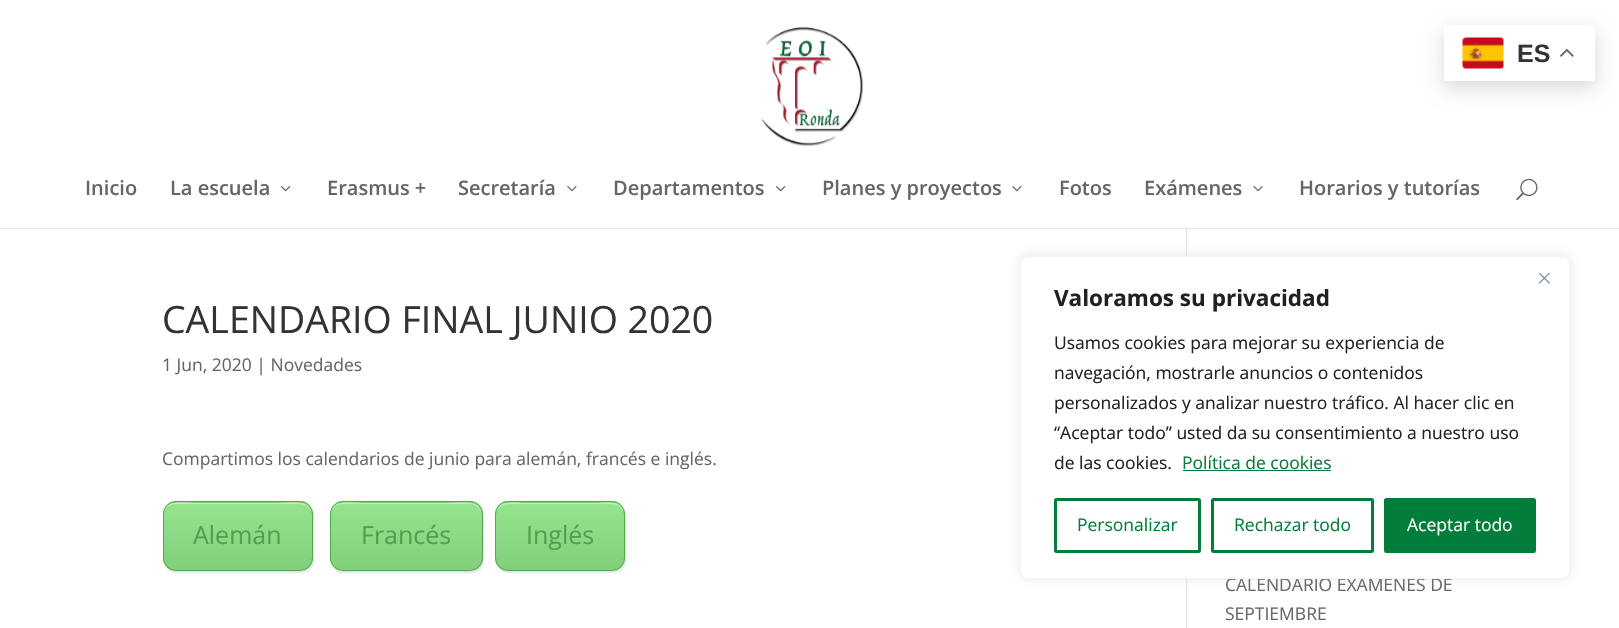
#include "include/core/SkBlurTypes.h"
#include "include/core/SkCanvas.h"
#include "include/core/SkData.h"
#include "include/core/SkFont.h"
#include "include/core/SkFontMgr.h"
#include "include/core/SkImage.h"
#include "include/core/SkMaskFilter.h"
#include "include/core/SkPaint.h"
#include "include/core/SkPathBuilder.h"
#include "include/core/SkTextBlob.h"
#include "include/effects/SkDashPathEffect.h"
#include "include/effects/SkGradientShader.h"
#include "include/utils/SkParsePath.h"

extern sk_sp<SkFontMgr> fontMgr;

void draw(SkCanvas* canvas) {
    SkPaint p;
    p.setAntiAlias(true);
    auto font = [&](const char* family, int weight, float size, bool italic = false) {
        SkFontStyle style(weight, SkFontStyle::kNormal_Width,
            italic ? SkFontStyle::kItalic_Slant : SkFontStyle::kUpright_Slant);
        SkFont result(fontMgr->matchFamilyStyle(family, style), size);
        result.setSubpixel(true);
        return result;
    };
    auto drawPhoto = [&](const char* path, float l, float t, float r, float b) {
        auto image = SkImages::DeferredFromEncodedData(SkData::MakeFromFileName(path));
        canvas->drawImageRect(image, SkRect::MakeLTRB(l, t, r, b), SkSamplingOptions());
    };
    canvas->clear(0xFFFFFFFF);
    p.setColor(0xFFE6E6E6);
    canvas->drawRect(SkRect::MakeLTRB(0, 228, 1619, 229), p);
    p.setColor(0x26000000);
    p.setMaskFilter(SkMaskFilter::MakeBlur(kNormal_SkBlurStyle, 9.5f));
    canvas->drawRoundRect(SkRect::MakeLTRB(1444, 31, 1595, 88), 2.5f, 2.5f, p);
    p.setMaskFilter(nullptr);
    p.setColor(0xFFFFFFFF);
    canvas->drawRoundRect(SkRect::MakeLTRB(1444, 25, 1595, 81), 2.5f, 2.5f, p);
    drawPhoto("media/1.png", 1462, 37, 1504, 69);
    auto font1 = font("Liberation Sans", 700, 25);
    p.setColor(0xFF333333);
    canvas->drawString("ES", 1517, 62, font1, p);
    drawPhoto("media/2.png", 1560, 48, 1574, 57);
    drawPhoto("media/3.png", 761, 27, 864, 147);
    auto font2 = font("Open Sans", 600, 20);
    p.setColor(0xFF666666);
    canvas->drawString("Inicio", 85, 195, font2, p);
    canvas->drawString("La escuela", 170, 195, font2, p);
    drawPhoto("media/4.png", 281, 186, 291, 192);
    canvas->drawString("Erasmus +", 327, 195, font2, p);
    canvas->drawString("Secretaría", 458, 195, font2, p);
    drawPhoto("media/5.png", 567, 186, 577, 192);
    canvas->drawString("Departamentos", 613, 195, font2, p);
    drawPhoto("media/4.png", 776, 186, 786, 192);
    canvas->drawString("Planes y proyectos", 822, 195, font2, p);
    drawPhoto("media/5.png", 1012, 186, 1022, 192);
    canvas->drawString("Fotos", 1059, 195, font2, p);
    canvas->drawString("Exámenes", 1144, 195, font2, p);
    drawPhoto("media/6.png", 1253, 186, 1263, 192);
    canvas->drawString("Horarios y tutorías", 1299, 195, font2, p);
    drawPhoto("media/7.png", 1516, 178, 1538, 201);
    p.setColor(0xFFE2E2E2);
    canvas->drawRect(SkRect::MakeLTRB(1186, 228, 1187, 628), p);
    p.setColor(0xFFCBCBCB);
    canvas->drawRect(SkRect::MakeLTRB(1186, 228, 1187, 229), p);
    auto font3 = font("Open Sans", 400, 37.5f);
    p.setColor(0xFF333333);
    canvas->drawString("CALENDARIO FINAL JUNIO 2020", 162, 333, font3, p);
    auto font4 = font("Open Sans", 400, 17.5f);
    p.setColor(0xFF666666);
    canvas->drawString("1 Jun, 2020 | Novedades", 162, 371, font4, p);
    canvas->drawString("Compartimos los calendarios de junio para alemán, francés e inglés.", 162, 465, font4, p);
    p.setColor(0x1A000000);
    p.setMaskFilter(SkMaskFilter::MakeBlur(kNormal_SkBlurStyle, 0.5f));
    canvas->drawRoundRect(SkRect::MakeLTRB(164, 503, 314, 573), 13, 13, p);
    p.setMaskFilter(nullptr);
    canvas->save();
    canvas->clipPath(SkPathBuilder().moveTo(176, 501).lineTo(300, 501).cubicTo(307, 501, 313, 507, 313, 514).lineTo(313, 558).cubicTo(313, 565, 307, 571, 300, 571).lineTo(176, 571).cubicTo(169, 571, 163, 565, 163, 558).lineTo(163, 514).cubicTo(163, 507, 169, 501, 176, 501).close().detach(), true);
    {
        const SkColor colors[] = {0xFF94E48D, 0xFF82CF7C};
        const float stops[] = {0, 1};
        const SkPoint ends[] = {{238, 435}, {238, 503}};
        p.setShader(SkGradientShader::MakeLinear(ends, colors, stops, 2, SkTileMode::kClamp));
        p.setAlpha(255);
    }
    canvas->drawRect(SkRect::MakeLTRB(163, 501, 313, 503), p);
    {
        const SkColor colors[] = {0xFF94E48D, 0xFF82CF7C};
        const float stops[] = {0, 1};
        const SkPoint ends[] = {{238, 503}, {238, 570}};
        p.setShader(SkGradientShader::MakeLinear(ends, colors, stops, 2, SkTileMode::kClamp));
        p.setAlpha(255);
    }
    canvas->drawRect(SkRect::MakeLTRB(163, 503, 313, 570), p);
    canvas->restore();
    p.setShader(nullptr);
    p.setColor(0x66FFFFFF);
    canvas->drawPath(SkPathBuilder().moveTo(175, 504).lineTo(300, 504).cubicTo(306, 504, 311, 509, 311, 515).cubicTo(311, 498, 290, 503, 279, 503).lineTo(196, 503).cubicTo(185, 503, 164, 498, 164, 515).cubicTo(164, 509, 169, 504, 175, 504).close().detach(), p);
    p.setStyle(SkPaint::kStroke_Style);
    p.setStrokeWidth(1);
    p.setColor(0xFF4DAB46);
    canvas->drawRoundRect(SkRect::MakeLTRB(163.5f, 501.5f, 312.5f, 570.5f), 12.5f, 12.5f, p);
    auto font5 = font("Open Sans", 400, 25);
    p.setStyle(SkPaint::kFill_Style);
    p.setColor(0xFF569D51);
    canvas->drawString("Alemán", 193, 544, font5, p);
    p.setColor(0x1A000000);
    p.setMaskFilter(SkMaskFilter::MakeBlur(kNormal_SkBlurStyle, 0.5f));
    canvas->drawRoundRect(SkRect::MakeLTRB(331, 503, 484, 573), 13, 13, p);
    p.setMaskFilter(nullptr);
    canvas->save();
    canvas->clipPath(SkPathBuilder().moveTo(343, 501).lineTo(470, 501).cubicTo(477, 501, 483, 507, 483, 514).lineTo(483, 558).cubicTo(483, 565, 477, 571, 470, 571).lineTo(343, 571).cubicTo(336, 571, 330, 565, 330, 558).lineTo(330, 514).cubicTo(330, 507, 336, 501, 343, 501).close().detach(), true);
    {
        const SkColor colors[] = {0xFF94E48D, 0xFF82CF7C};
        const float stops[] = {0, 1};
        const SkPoint ends[] = {{406, 435}, {406, 503}};
        p.setShader(SkGradientShader::MakeLinear(ends, colors, stops, 2, SkTileMode::kClamp));
        p.setAlpha(255);
    }
    canvas->drawRect(SkRect::MakeLTRB(330, 501, 483, 503), p);
    {
        const SkColor colors[] = {0xFF94E48D, 0xFF82CF7C};
        const float stops[] = {0, 1};
        const SkPoint ends[] = {{406, 503}, {406, 570}};
        p.setShader(SkGradientShader::MakeLinear(ends, colors, stops, 2, SkTileMode::kClamp));
        p.setAlpha(255);
    }
    canvas->drawRect(SkRect::MakeLTRB(330, 503, 483, 570), p);
    canvas->restore();
    p.setShader(nullptr);
    p.setColor(0x66FFFFFF);
    canvas->drawPath(SkPathBuilder().moveTo(342, 504).lineTo(470, 504).cubicTo(476, 504, 481, 509, 481, 515).cubicTo(481, 498, 459, 503, 449, 503).lineTo(363, 503).cubicTo(353, 503, 331, 498, 331, 515).cubicTo(331, 509, 336, 504, 342, 504).close().detach(), p);
    p.setStyle(SkPaint::kStroke_Style);
    p.setColor(0xFF4DAB46);
    canvas->drawRoundRect(SkRect::MakeLTRB(330.5f, 501.5f, 482.5f, 570.5f), 12.5f, 12.5f, p);
    p.setStyle(SkPaint::kFill_Style);
    p.setColor(0xFF569D51);
    canvas->drawString("Francés", 361, 544, font5, p);
    p.setColor(0x1A000000);
    p.setMaskFilter(SkMaskFilter::MakeBlur(kNormal_SkBlurStyle, 0.5f));
    canvas->drawRoundRect(SkRect::MakeLTRB(496, 503, 626, 573), 13, 13, p);
    p.setMaskFilter(nullptr);
    canvas->save();
    canvas->clipPath(SkPathBuilder().moveTo(508, 501).lineTo(612, 501).cubicTo(619, 501, 625, 507, 625, 514).lineTo(625, 558).cubicTo(625, 565, 619, 571, 612, 571).lineTo(508, 571).cubicTo(501, 571, 495, 565, 495, 558).lineTo(495, 514).cubicTo(495, 507, 501, 501, 508, 501).close().detach(), true);
    {
        const SkColor colors[] = {0xFF94E48D, 0xFF82CF7C};
        const float stops[] = {0, 1};
        const SkPoint ends[] = {{560, 435}, {560, 503}};
        p.setShader(SkGradientShader::MakeLinear(ends, colors, stops, 2, SkTileMode::kClamp));
        p.setAlpha(255);
    }
    canvas->drawRect(SkRect::MakeLTRB(495, 501, 625, 503), p);
    {
        const SkColor colors[] = {0xFF94E48D, 0xFF82CF7C};
        const float stops[] = {0, 1};
        const SkPoint ends[] = {{560, 503}, {560, 570}};
        p.setShader(SkGradientShader::MakeLinear(ends, colors, stops, 2, SkTileMode::kClamp));
        p.setAlpha(255);
    }
    canvas->drawRect(SkRect::MakeLTRB(495, 503, 625, 570), p);
    canvas->restore();
    p.setShader(nullptr);
    p.setColor(0xFFBFEFBB);
    canvas->drawPath(SkPathBuilder().moveTo(508, 504).lineTo(612, 504).cubicTo(619, 504, 624, 509, 624, 515).cubicTo(624, 499, 606, 503, 595, 503).lineTo(525, 503).cubicTo(514, 503, 496, 499, 496, 515).cubicTo(496, 509, 501, 504, 508, 504).close().detach(), p);
    p.setStyle(SkPaint::kStroke_Style);
    p.setColor(0xFF4DAB46);
    canvas->drawRoundRect(SkRect::MakeLTRB(495.5f, 501.5f, 624.5f, 570.5f), 12.5f, 12.5f, p);
    p.setStyle(SkPaint::kFill_Style);
    p.setColor(0xFF569D51);
    canvas->drawString("Inglés", 526, 544, font5, p);
    p.setColor(0xFF666666);
    canvas->drawString("CALENDARIO EXÁMENES DE", 1225, 591, font4, p);
    canvas->drawString("SEPTIEMBRE", 1225, 620, font4, p);
    p.setColor(0x4DACABAB);
    p.setMaskFilter(SkMaskFilter::MakeBlur(kNormal_SkBlurStyle, 6));
    canvas->drawRoundRect(SkRect::MakeLTRB(1020, 255, 1570, 578), 8, 8, p);
    p.setMaskFilter(nullptr);
    p.setColor(0xFFFFFFFF);
    canvas->drawRoundRect(SkRect::MakeLTRB(1020.5f, 256.5f, 1569.5f, 578.5f), 7.5f, 7.5f, p);
    p.setStyle(SkPaint::kStroke_Style);
    p.setColor(0xFFF4F4F4);
    canvas->drawRoundRect(SkRect::MakeLTRB(1020.5f, 256.5f, 1569.5f, 578.5f), 7.5f, 7.5f, p);
    drawPhoto("media/8.png", 1539, 273, 1550, 284);
    auto font6 = font("Open Sans", 700, 22.5f);
    p.setStyle(SkPaint::kFill_Style);
    p.setColor(0xFF212121);
    canvas->drawString("Valoramos su privacidad", 1054, 306, font6, p);
    {
        const struct { const char* s; float x, y; } items[] = {
            {"Usamos cookies para mejorar su experiencia de", 1054, 349},
            {"navegación, mostrarle anuncios o contenidos", 1054, 379},
            {"personalizados y analizar nuestro tráfico. Al hacer clic en", 1054, 409},
            {"“Aceptar todo” usted da su consentimiento a nuestro uso", 1054, 439},
            {"de las cookies.", 1054, 469},
        };
        for (auto [s, x, y] : items) {
            canvas->drawString(s, x, y, font4, p);
        }
    }
    p.setColor(0xFF027D3A);
    canvas->drawString("Política de cookies", 1182, 469, font4, p);
    canvas->drawRect(SkRect::MakeLTRB(1183, 470, 1331, 471), p);
    p.setStyle(SkPaint::kStroke_Style);
    p.setStrokeWidth(3);
    canvas->drawRoundRect(SkRect::MakeLTRB(1055.5f, 499.5f, 1199.5f, 551.5f), 1, 1, p);
    p.setStyle(SkPaint::kFill_Style);
    canvas->drawString("Personalizar", 1077, 531, font4, p);
    p.setStyle(SkPaint::kStroke_Style);
    canvas->drawRoundRect(SkRect::MakeLTRB(1212.5f, 499.5f, 1372.5f, 551.5f), 1, 1, p);
    p.setStyle(SkPaint::kFill_Style);
    canvas->drawString("Rechazar todo", 1234, 531, font4, p);
    canvas->drawRoundRect(SkRect::MakeLTRB(1385.5f, 499.5f, 1534.5f, 551.5f), 1, 1, p);
    p.setStyle(SkPaint::kStroke_Style);
    canvas->drawRoundRect(SkRect::MakeLTRB(1385.5f, 499.5f, 1534.5f, 551.5f), 1, 1, p);
    p.setStyle(SkPaint::kFill_Style);
    p.setColor(0xFFFFFFFF);
    canvas->drawString("Aceptar todo", 1407, 531, font4, p);
}
